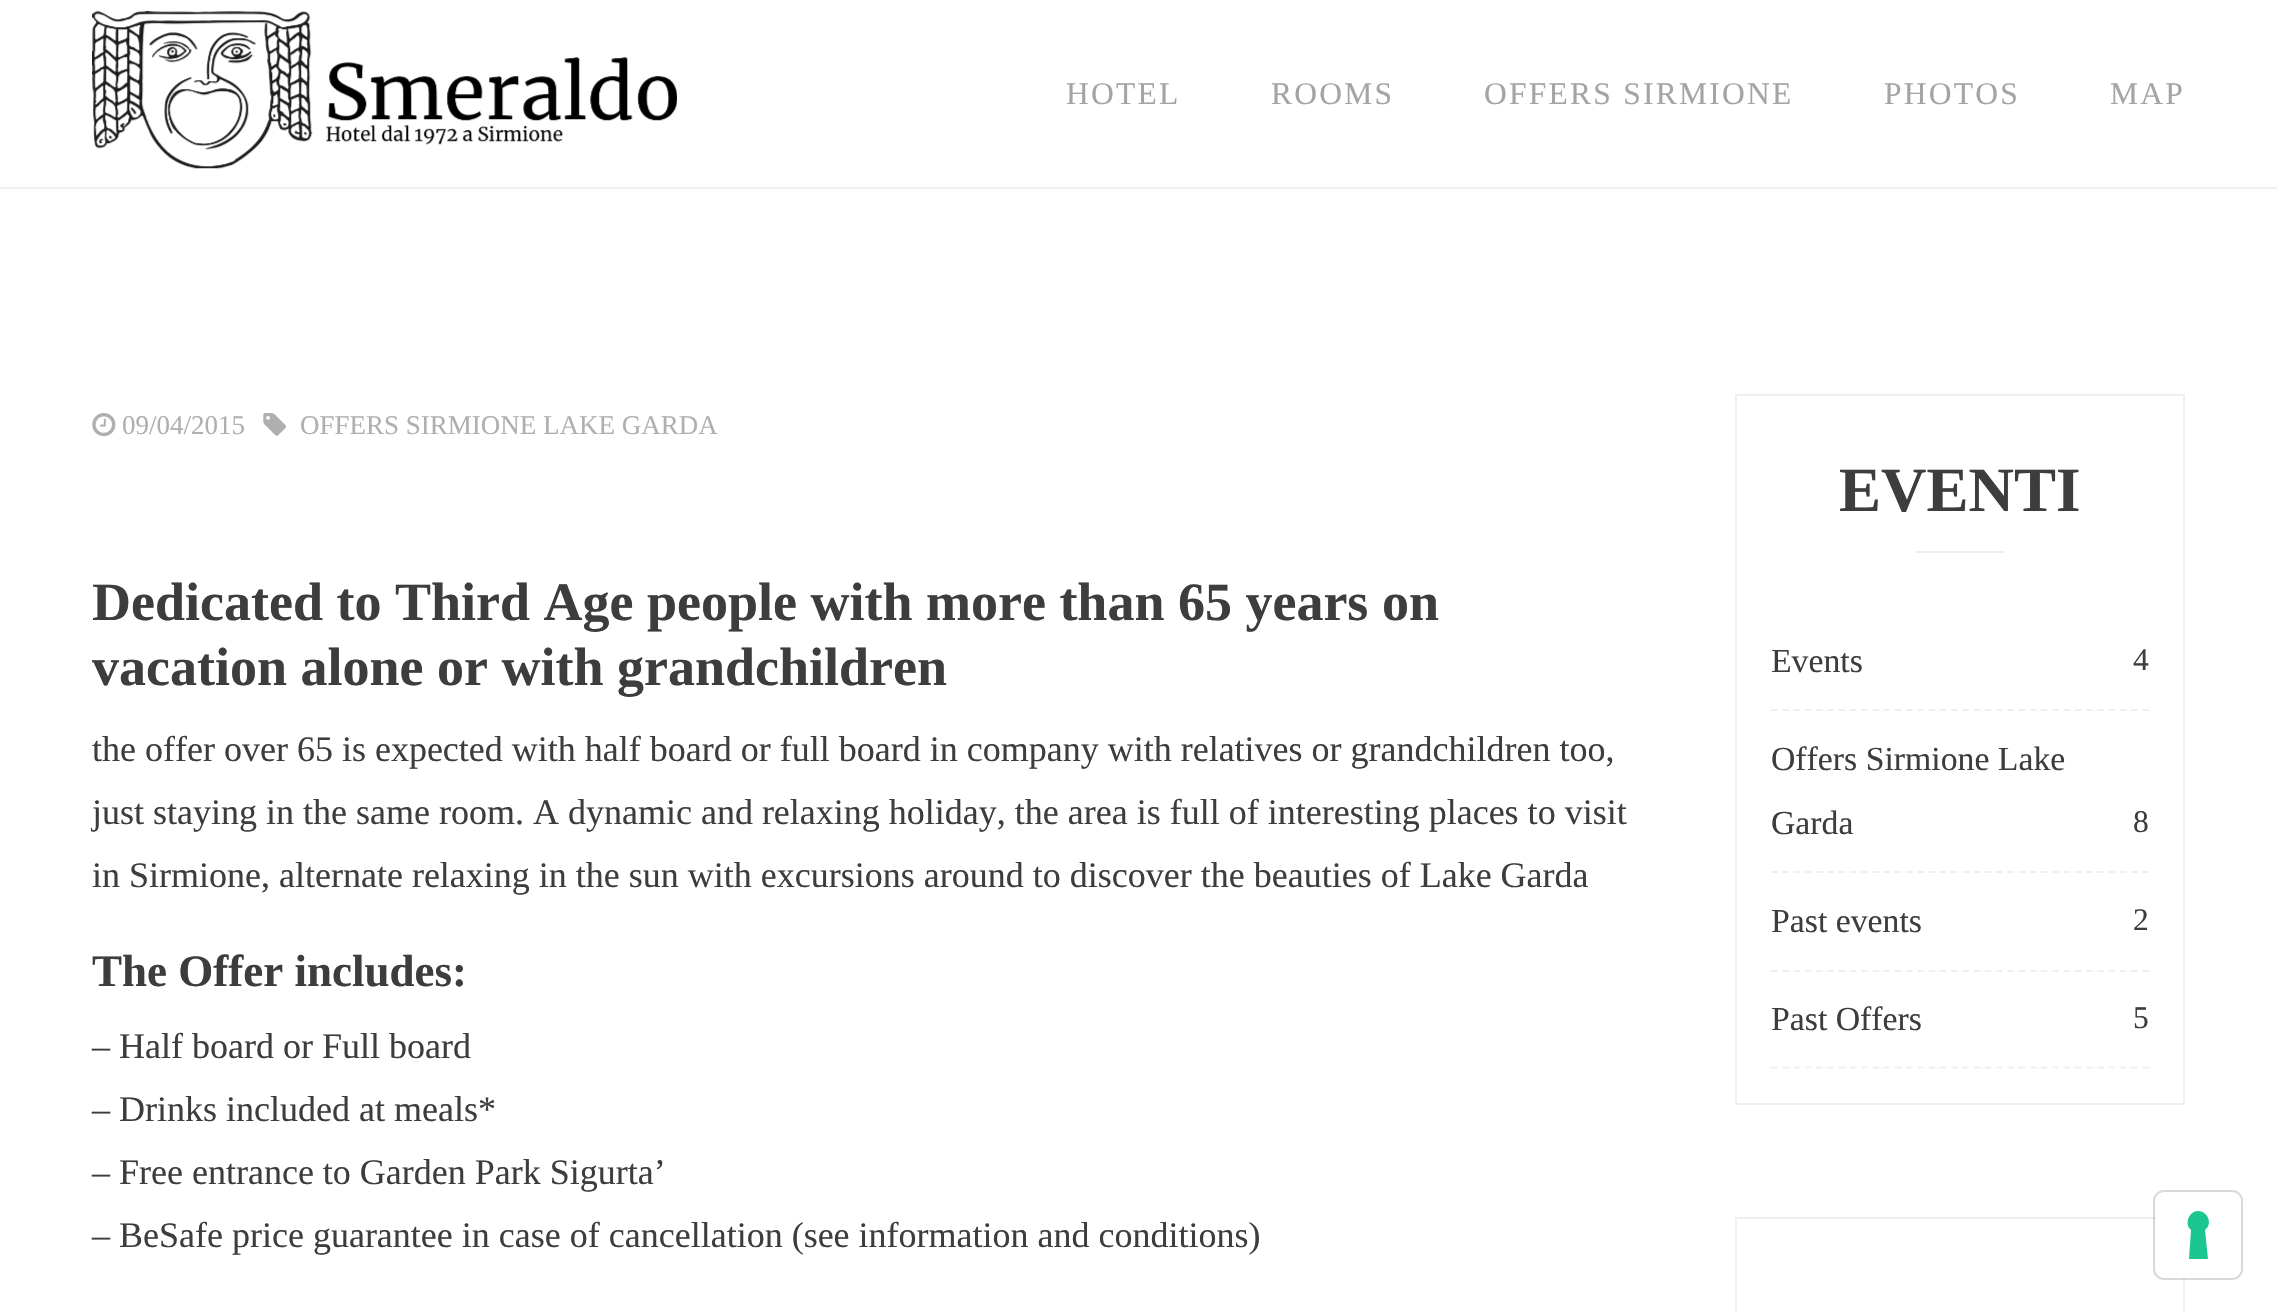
#include "include/core/SkBlurTypes.h"
#include "include/core/SkCanvas.h"
#include "include/core/SkData.h"
#include "include/core/SkFont.h"
#include "include/core/SkFontMgr.h"
#include "include/core/SkImage.h"
#include "include/core/SkMaskFilter.h"
#include "include/core/SkPaint.h"
#include "include/core/SkPathBuilder.h"
#include "include/core/SkTextBlob.h"
#include "include/effects/SkDashPathEffect.h"
#include "include/effects/SkGradientShader.h"
#include "include/utils/SkParsePath.h"

extern sk_sp<SkFontMgr> fontMgr;

void draw(SkCanvas* canvas) {
    SkPaint p;
    p.setAntiAlias(true);
    auto font = [&](const char* family, int weight, float size, bool italic = false) {
        SkFontStyle style(weight, SkFontStyle::kNormal_Width,
            italic ? SkFontStyle::kItalic_Slant : SkFontStyle::kUpright_Slant);
        SkFont result(fontMgr->matchFamilyStyle(family, style), size);
        result.setSubpixel(true);
        return result;
    };
    auto drawTracked = [&](const char* s, float x, float y, const SkFont& font, const SkPaint& ink, float letter, float word) {
        std::vector<SkGlyphID> glyphs(font.countText(s, strlen(s), SkTextEncoding::kUTF8));
        std::vector<float> xs(glyphs.size());
        font.textToGlyphs(s, strlen(s), SkTextEncoding::kUTF8, glyphs);
        font.getXPos(glyphs, xs, x);
        float extra = 0;
        for (size_t i = 0; i < glyphs.size(); i++) {
            xs[i] += extra;
            extra += letter + word * (glyphs[i] == font.unicharToGlyph(' '));
        }
        canvas->drawTextBlob(SkTextBlob::MakeFromPosHGlyphs(glyphs, xs, y, font), 0, 0, ink);
    };
    auto drawPhoto = [&](const char* path, float l, float t, float r, float b) {
        auto image = SkImages::DeferredFromEncodedData(SkData::MakeFromFileName(path));
        canvas->drawImageRect(image, SkRect::MakeLTRB(l, t, r, b), SkSamplingOptions());
    };
    canvas->clear(0xFFFFFFFF);
    p.setColor(0xFFEFEFEF);
    canvas->drawRect(SkRect::MakeLTRB(0, 187, 2277, 189), p);
    drawPhoto("media/1.png", 92, 11, 677, 169);
    auto font1 = font("Liberation Serif", 400, 31.5f);
    p.setColor(0xFFA4A4A4);
    {
        const struct { const char* s; float x, y; } items[] = {
            {"HOTEL", 1066, 104},
            {"ROOMS", 1271, 104},
            {"OFFERS SIRMIONE", 1484, 104},
            {"PHOTOS", 1884, 104},
            {"MAP", 2110, 104},
        };
        for (auto [s, x, y] : items) {
            drawTracked(s, x, y, font1, p, 2.25f, 0);
        }
    }
    drawPhoto("media/2.png", 92, 413, 116, 437);
    auto font2 = font("Liberation Serif", 400, 27);
    p.setColor(0xFFAFAFAF);
    canvas->drawString("09/04/2015", 122, 434, font2, p);
    drawPhoto("media/3.png", 263, 413, 286, 436);
    canvas->drawString("OFFERS SIRMIONE LAKE GARDA", 300, 434, font2, p);
    auto font3 = font("Liberation Serif", 700, 54);
    p.setColor(0xFF3C3D3C);
    canvas->drawString("Dedicated to Third Age people with more than 65 years on", 92, 620, font3, p);
    canvas->drawString("vacation alone or with grandchildren", 92, 685, font3, p);
    auto font4 = font("Liberation Serif", 400, 36);
    {
        const struct { const char* s; float x, y; } items[] = {
            {"the offer over 65 is expected with half board or full board in company with relatives or grandchildren too,", 92, 761},
            {"just staying in the same room. A dynamic and relaxing holiday, the area is full of interesting places to visit", 92, 824},
            {"in Sirmione, alternate relaxing in the sun with excursions around to discover the beauties of Lake Garda", 92, 887},
        };
        for (auto [s, x, y] : items) {
            canvas->drawString(s, x, y, font4, p);
        }
    }
    auto font5 = font("Liberation Serif", 700, 45);
    canvas->drawString("The Offer includes:", 92, 986, font5, p);
    {
        const struct { const char* s; float x, y; } items[] = {
            {"– Half board or Full board", 92, 1058},
            {"– Drinks included at meals*", 92, 1121},
            {"– Free entrance to Garden Park Sigurta’", 92, 1184},
            {"– BeSafe price guarantee in case of cancellation (see information and conditions)", 92, 1247},
        };
        for (auto [s, x, y] : items) {
            canvas->drawString(s, x, y, font4, p);
        }
    }
    p.setStyle(SkPaint::kStroke_Style);
    p.setStrokeWidth(2);
    p.setColor(0xFFEFEFEF);
    canvas->drawRect(SkRect::MakeLTRB(1736, 395, 2184, 1104), p);
    auto font6 = font("Liberation Serif", 700, 63);
    p.setStyle(SkPaint::kFill_Style);
    p.setColor(0xFF3C3D3C);
    canvas->drawString("EVENTI", 1839, 511, font6, p);
    p.setColor(0xFFEFEFEF);
    canvas->drawRect(SkRect::MakeLTRB(1915, 551, 2005, 553), p);
    p.setStyle(SkPaint::kStroke_Style);
    p.setStrokeWidth(2.2f);
    p.setPathEffect(SkDashPathEffect::Make({{6.75f, 4.5f}}, 0));
    canvas->drawPath(SkPathBuilder().moveTo(1771, 710).lineTo(2149, 710).detach(), p);
    p.setPathEffect(nullptr);
    auto font7 = font("Liberation Serif", 400, 33.75f);
    p.setStyle(SkPaint::kFill_Style);
    p.setColor(0xFF3C3D3C);
    canvas->drawString("Events", 1771, 672, font7, p);
    canvas->drawString("4", 2133, 670, font1, p);
    p.setStyle(SkPaint::kStroke_Style);
    p.setColor(0xFFEFEFEF);
    p.setPathEffect(SkDashPathEffect::Make({{6.75f, 4.5f}}, 0));
    canvas->drawPath(SkPathBuilder().moveTo(1771, 872).lineTo(2149, 872).detach(), p);
    p.setPathEffect(nullptr);
    p.setStyle(SkPaint::kFill_Style);
    p.setColor(0xFF3C3D3C);
    canvas->drawString("Offers Sirmione Lake", 1771, 770, font7, p);
    canvas->drawString("Garda", 1771, 834, font7, p);
    canvas->drawString("8", 2133, 832, font1, p);
    p.setStyle(SkPaint::kStroke_Style);
    p.setColor(0xFFEFEFEF);
    p.setPathEffect(SkDashPathEffect::Make({{6.75f, 4.5f}}, 0));
    canvas->drawPath(SkPathBuilder().moveTo(1771, 971).lineTo(2149, 971).detach(), p);
    p.setPathEffect(nullptr);
    p.setStyle(SkPaint::kFill_Style);
    p.setColor(0xFF3C3D3C);
    canvas->drawString("Past events", 1771, 932, font7, p);
    canvas->drawString("2", 2133, 930, font1, p);
    p.setStyle(SkPaint::kStroke_Style);
    p.setColor(0xFFEFEFEF);
    p.setPathEffect(SkDashPathEffect::Make({{6.75f, 4.5f}}, 0));
    canvas->drawPath(SkPathBuilder().moveTo(1771, 1067.5f).lineTo(2149, 1067.5f).detach(), p);
    p.setPathEffect(nullptr);
    p.setStyle(SkPaint::kFill_Style);
    p.setColor(0xFF3C3D3C);
    canvas->drawString("Past Offers", 1771, 1030, font7, p);
    canvas->drawString("5", 2133, 1028, font1, p);
    p.setStyle(SkPaint::kStroke_Style);
    p.setStrokeWidth(2);
    p.setColor(0xFFEFEFEF);
    canvas->drawRect(SkRect::MakeLTRB(1736, 1218, 2184, 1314), p);
    p.setColor(0x26000000);
    canvas->drawRoundRect(SkRect::MakeLTRB(2154, 1191, 2242, 1279), 10, 10, p);
    p.setStyle(SkPaint::kFill_Style);
    p.setColor(0xFFFFFFFF);
    canvas->drawRoundRect(SkRect::MakeLTRB(2156, 1193, 2241, 1278), 9, 9, p);
    p.setColor(0xFF1CC691);
    canvas->drawPath(SkPathBuilder(SkPathFillType::kEvenOdd).moveTo(2198, 1211).cubicTo(2208, 1211, 2213, 1224, 2205, 1230).lineTo(2208, 1259).lineTo(2189, 1259).lineTo(2191, 1230).cubicTo(2184, 1224, 2189, 1211, 2198, 1211).close().detach(), p);
}
